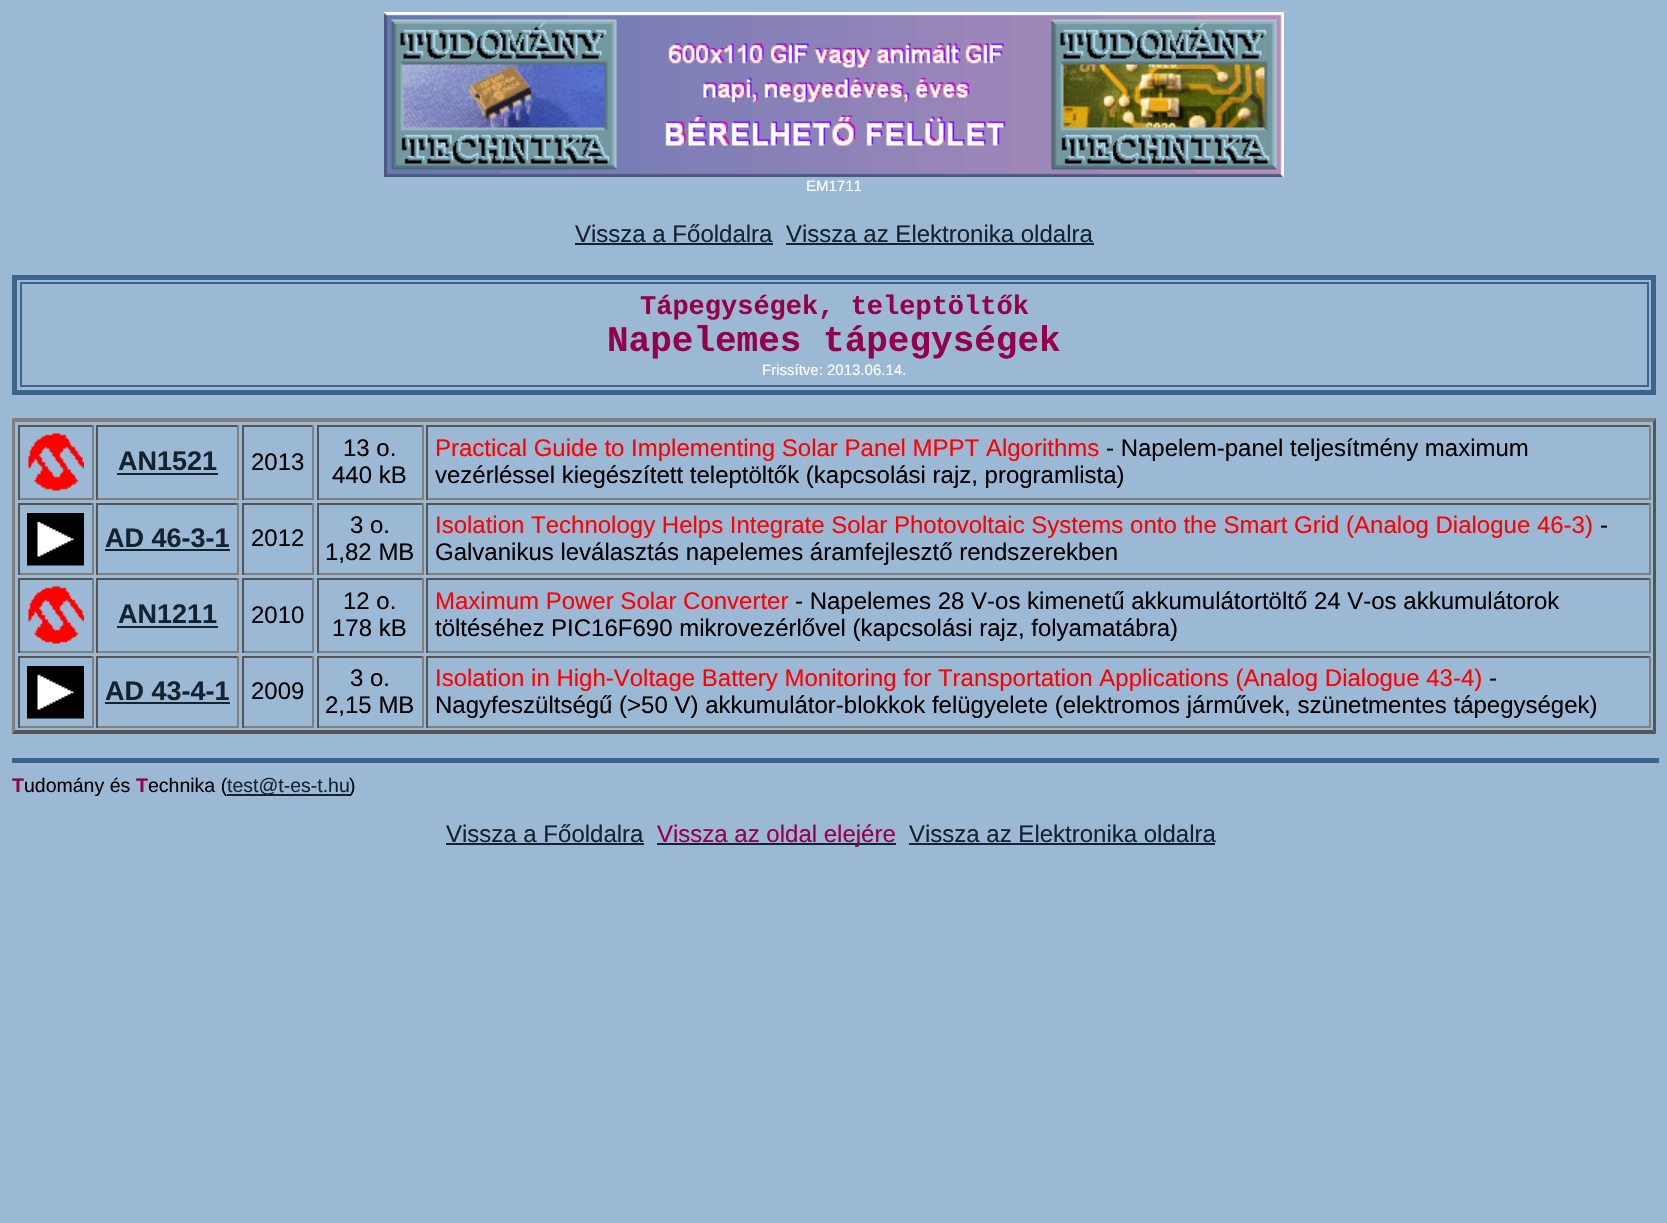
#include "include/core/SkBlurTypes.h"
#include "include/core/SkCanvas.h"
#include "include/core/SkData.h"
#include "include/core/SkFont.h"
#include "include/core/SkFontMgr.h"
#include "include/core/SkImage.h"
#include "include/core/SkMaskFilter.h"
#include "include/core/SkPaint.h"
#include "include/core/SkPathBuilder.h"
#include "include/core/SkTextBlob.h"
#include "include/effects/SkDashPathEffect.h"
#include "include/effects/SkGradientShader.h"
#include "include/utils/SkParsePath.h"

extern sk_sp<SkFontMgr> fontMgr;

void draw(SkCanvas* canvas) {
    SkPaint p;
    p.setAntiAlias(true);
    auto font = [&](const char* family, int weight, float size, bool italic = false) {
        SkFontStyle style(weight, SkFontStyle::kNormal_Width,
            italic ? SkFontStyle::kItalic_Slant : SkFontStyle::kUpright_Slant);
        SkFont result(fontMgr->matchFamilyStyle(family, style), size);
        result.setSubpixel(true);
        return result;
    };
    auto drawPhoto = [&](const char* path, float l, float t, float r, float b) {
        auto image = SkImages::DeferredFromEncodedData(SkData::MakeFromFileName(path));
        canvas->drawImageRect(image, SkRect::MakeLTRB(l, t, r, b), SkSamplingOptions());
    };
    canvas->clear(0xFF9BB8D5);
    drawPhoto("media/1.png", 384, 12, 1284, 177);
    auto font1 = font("Liberation Sans", 400, 15);
    p.setColor(0xFFFFFFFF);
    canvas->drawString("EM1711", 806, 191, font1, p);
    auto font2 = font("Liberation Sans", 400, 24);
    p.setColor(0xFF152331);
    canvas->drawString("Vissza a Főoldalra", 575, 242, font2, p);
    canvas->drawRect(SkRect::MakeLTRB(575, 243, 773, 245), p);
    canvas->drawString("Vissza az Elektronika oldalra", 786, 242, font2, p);
    canvas->drawRect(SkRect::MakeLTRB(786, 243, 1094, 245), p);
    p.setStyle(SkPaint::kStroke_Style);
    p.setStrokeWidth(5);
    p.setColor(0xFF3C638A);
    canvas->drawRect(SkRect::MakeLTRB(14.5f, 277.5f, 1653.5f, 392.5f), p);
    p.setStrokeWidth(2);
    canvas->drawRect(SkRect::MakeLTRB(21, 283, 1648, 386), p);
    auto font3 = font("Liberation Mono", 700, 27);
    p.setStyle(SkPaint::kFill_Style);
    p.setColor(0xFF95004A);
    canvas->drawString("Tápegységek, teleptöltők", 640, 314, font3, p);
    auto font4 = font("Liberation Mono", 700, 36);
    canvas->drawString("Napelemes tápegységek", 607, 351, font4, p);
    p.setColor(0xFFFFFFFF);
    canvas->drawString("Frissítve: 2013.06.14.", 762, 375, font1, p);
    p.setColor(0xFF808080);
    canvas->drawPath(SkPathBuilder().moveTo(12, 418).lineTo(1656, 418).lineTo(1653, 422).lineTo(15, 422).close().detach(), p);
    p.setColor(0xFF555555);
    canvas->drawPath(SkPathBuilder().moveTo(1656, 418).lineTo(1656, 734).lineTo(1653, 730).lineTo(1653, 422).close().detach(), p);
    canvas->drawPath(SkPathBuilder().moveTo(1656, 734).lineTo(12, 734).lineTo(15, 730).lineTo(1653, 730).close().detach(), p);
    p.setColor(0xFF808080);
    canvas->drawPath(SkPathBuilder().moveTo(12, 734).lineTo(12, 418).lineTo(15, 422).lineTo(15, 730).close().detach(), p);
    {
        const struct { float l, t, r, b; SkColor color; } items[] = {
            {18, 425, 93, 427, 0xFF555555},
            {92, 425, 94, 500, 0xFF808080},
            {18, 498, 93, 500, 0xFF808080},
            {18, 425, 20, 500, 0xFF555555},
        };
        for (auto [l, t, r, b, color] : items) {
            p.setColor(color);
            canvas->drawRect(SkRect::MakeLTRB(l, t, r, b), p);
        }
    }
    drawPhoto("media/2.png", 28, 433, 84, 491);
    {
        const struct { float l, t, r, b; SkColor color; } items[] = {
            {96, 425, 239, 427, 0xFF555555},
            {237, 425, 239, 500, 0xFF808080},
            {96, 498, 239, 500, 0xFF808080},
            {96, 425, 98, 500, 0xFF555555},
        };
        for (auto [l, t, r, b, color] : items) {
            p.setColor(color);
            canvas->drawRect(SkRect::MakeLTRB(l, t, r, b), p);
        }
    }
    auto font5 = font("Liberation Sans", 700, 27);
    p.setColor(0xFF152331);
    canvas->drawString("AN1521", 118, 470, font5, p);
    {
        const struct { float l, t, r, b; SkColor color; } items[] = {
            {117, 473, 218, 475, 0xFF152331},
            {242, 425, 314, 427, 0xFF555555},
            {312, 425, 314, 500, 0xFF808080},
            {242, 498, 314, 500, 0xFF808080},
            {242, 425, 244, 500, 0xFF555555},
        };
        for (auto [l, t, r, b, color] : items) {
            p.setColor(color);
            canvas->drawRect(SkRect::MakeLTRB(l, t, r, b), p);
        }
    }
    p.setColor(0xFF000000);
    canvas->drawString("2013", 251, 470, font2, p);
    {
        const struct { float l, t, r, b; SkColor color; } items[] = {
            {317, 425, 423, 427, 0xFF555555},
            {422, 425, 424, 500, 0xFF808080},
            {317, 498, 423, 500, 0xFF808080},
            {317, 425, 319, 500, 0xFF555555},
        };
        for (auto [l, t, r, b, color] : items) {
            p.setColor(color);
            canvas->drawRect(SkRect::MakeLTRB(l, t, r, b), p);
        }
    }
    p.setColor(0xFF000000);
    canvas->drawString("13 o.", 343, 456, font2, p);
    canvas->drawString("440 kB", 332, 483, font2, p);
    {
        const struct { float l, t, r, b; SkColor color; } items[] = {
            {426, 425, 1650, 427, 0xFF555555},
            {1649, 425, 1651, 500, 0xFF808080},
            {426, 498, 1650, 500, 0xFF808080},
            {426, 425, 428, 500, 0xFF555555},
        };
        for (auto [l, t, r, b, color] : items) {
            p.setColor(color);
            canvas->drawRect(SkRect::MakeLTRB(l, t, r, b), p);
        }
    }
    p.setColor(0xFFFF0000);
    canvas->drawString("Practical Guide to Implementing Solar Panel MPPT Algorithms", 435, 456, font2, p);
    p.setColor(0xFF000000);
    canvas->drawString("- Napelem-panel teljesítmény maximum", 1106, 456, font2, p);
    canvas->drawString("vezérléssel kiegészített teleptöltők (kapcsolási rajz, programlista)", 435, 483, font2, p);
    {
        const struct { float l, t, r, b; SkColor color; } items[] = {
            {18, 503, 93, 505, 0xFF555555},
            {92, 503, 94, 575, 0xFF808080},
            {18, 573, 93, 575, 0xFF808080},
            {18, 503, 20, 575, 0xFF555555},
        };
        for (auto [l, t, r, b, color] : items) {
            p.setColor(color);
            canvas->drawRect(SkRect::MakeLTRB(l, t, r, b), p);
        }
    }
    drawPhoto("media/3.png", 27, 513, 84, 566);
    {
        const struct { float l, t, r, b; SkColor color; } items[] = {
            {96, 503, 239, 505, 0xFF555555},
            {237, 503, 239, 575, 0xFF808080},
            {96, 573, 239, 575, 0xFF808080},
            {96, 503, 98, 575, 0xFF555555},
        };
        for (auto [l, t, r, b, color] : items) {
            p.setColor(color);
            canvas->drawRect(SkRect::MakeLTRB(l, t, r, b), p);
        }
    }
    p.setColor(0xFF152331);
    canvas->drawString("AD 46-3-1", 105, 547, font5, p);
    {
        const struct { float l, t, r, b; SkColor color; } items[] = {
            {105, 549, 230, 551, 0xFF152331},
            {242, 503, 314, 505, 0xFF555555},
            {312, 503, 314, 575, 0xFF808080},
            {242, 573, 314, 575, 0xFF808080},
            {242, 503, 244, 575, 0xFF555555},
        };
        for (auto [l, t, r, b, color] : items) {
            p.setColor(color);
            canvas->drawRect(SkRect::MakeLTRB(l, t, r, b), p);
        }
    }
    p.setColor(0xFF000000);
    canvas->drawString("2012", 251, 546, font2, p);
    {
        const struct { float l, t, r, b; SkColor color; } items[] = {
            {317, 503, 423, 505, 0xFF555555},
            {422, 503, 424, 575, 0xFF808080},
            {317, 573, 423, 575, 0xFF808080},
            {317, 503, 319, 575, 0xFF555555},
        };
        for (auto [l, t, r, b, color] : items) {
            p.setColor(color);
            canvas->drawRect(SkRect::MakeLTRB(l, t, r, b), p);
        }
    }
    p.setColor(0xFF000000);
    canvas->drawString("3 o.", 350, 533, font2, p);
    canvas->drawString("1,82 MB", 325, 560, font2, p);
    {
        const struct { float l, t, r, b; SkColor color; } items[] = {
            {426, 503, 1650, 505, 0xFF555555},
            {1649, 503, 1651, 575, 0xFF808080},
            {426, 573, 1650, 575, 0xFF808080},
            {426, 503, 428, 575, 0xFF555555},
        };
        for (auto [l, t, r, b, color] : items) {
            p.setColor(color);
            canvas->drawRect(SkRect::MakeLTRB(l, t, r, b), p);
        }
    }
    p.setColor(0xFFFF0000);
    canvas->drawString("Isolation Technology Helps Integrate Solar Photovoltaic Systems onto the Smart Grid (Analog Dialogue 46-3)", 435, 533, font2, p);
    p.setColor(0xFF000000);
    canvas->drawString("-", 1600, 533, font2, p);
    canvas->drawString("Galvanikus leválasztás napelemes áramfejlesztő rendszerekben", 435, 560, font2, p);
    {
        const struct { float l, t, r, b; SkColor color; } items[] = {
            {18, 578, 93, 580, 0xFF555555},
            {92, 578, 94, 653, 0xFF808080},
            {18, 651, 93, 653, 0xFF808080},
            {18, 578, 20, 653, 0xFF555555},
        };
        for (auto [l, t, r, b, color] : items) {
            p.setColor(color);
            canvas->drawRect(SkRect::MakeLTRB(l, t, r, b), p);
        }
    }
    drawPhoto("media/2.png", 28, 586, 84, 644);
    {
        const struct { float l, t, r, b; SkColor color; } items[] = {
            {96, 578, 239, 580, 0xFF555555},
            {237, 578, 239, 653, 0xFF808080},
            {96, 651, 239, 653, 0xFF808080},
            {96, 578, 98, 653, 0xFF555555},
        };
        for (auto [l, t, r, b, color] : items) {
            p.setColor(color);
            canvas->drawRect(SkRect::MakeLTRB(l, t, r, b), p);
        }
    }
    p.setColor(0xFF152331);
    canvas->drawString("AN1211", 118, 623, font5, p);
    {
        const struct { float l, t, r, b; SkColor color; } items[] = {
            {117, 626, 218, 628, 0xFF152331},
            {242, 578, 314, 580, 0xFF555555},
            {312, 578, 314, 653, 0xFF808080},
            {242, 651, 314, 653, 0xFF808080},
            {242, 578, 244, 653, 0xFF555555},
        };
        for (auto [l, t, r, b, color] : items) {
            p.setColor(color);
            canvas->drawRect(SkRect::MakeLTRB(l, t, r, b), p);
        }
    }
    p.setColor(0xFF000000);
    canvas->drawString("2010", 251, 623, font2, p);
    {
        const struct { float l, t, r, b; SkColor color; } items[] = {
            {317, 578, 423, 580, 0xFF555555},
            {422, 578, 424, 653, 0xFF808080},
            {317, 651, 423, 653, 0xFF808080},
            {317, 578, 319, 653, 0xFF555555},
        };
        for (auto [l, t, r, b, color] : items) {
            p.setColor(color);
            canvas->drawRect(SkRect::MakeLTRB(l, t, r, b), p);
        }
    }
    p.setColor(0xFF000000);
    canvas->drawString("12 o.", 343, 609, font2, p);
    canvas->drawString("178 kB", 332, 636, font2, p);
    {
        const struct { float l, t, r, b; SkColor color; } items[] = {
            {426, 578, 1650, 580, 0xFF555555},
            {1649, 578, 1651, 653, 0xFF808080},
            {426, 651, 1650, 653, 0xFF808080},
            {426, 578, 428, 653, 0xFF555555},
        };
        for (auto [l, t, r, b, color] : items) {
            p.setColor(color);
            canvas->drawRect(SkRect::MakeLTRB(l, t, r, b), p);
        }
    }
    p.setColor(0xFFFF0000);
    canvas->drawString("Maximum Power Solar Converter", 435, 609, font2, p);
    p.setColor(0xFF000000);
    canvas->drawString("- Napelemes 28 V-os kimenetű akkumulátortöltő 24 V-os akkumulátorok", 795, 609, font2, p);
    canvas->drawString("töltéséhez PIC16F690 mikrovezérlővel (kapcsolási rajz, folyamatábra)", 435, 636, font2, p);
    {
        const struct { float l, t, r, b; SkColor color; } items[] = {
            {18, 656, 93, 658, 0xFF555555},
            {92, 656, 94, 728, 0xFF808080},
            {18, 726, 93, 728, 0xFF808080},
            {18, 656, 20, 728, 0xFF555555},
        };
        for (auto [l, t, r, b, color] : items) {
            p.setColor(color);
            canvas->drawRect(SkRect::MakeLTRB(l, t, r, b), p);
        }
    }
    drawPhoto("media/3.png", 27, 666, 84, 719);
    {
        const struct { float l, t, r, b; SkColor color; } items[] = {
            {96, 656, 239, 658, 0xFF555555},
            {237, 656, 239, 728, 0xFF808080},
            {96, 726, 239, 728, 0xFF808080},
            {96, 656, 98, 728, 0xFF555555},
        };
        for (auto [l, t, r, b, color] : items) {
            p.setColor(color);
            canvas->drawRect(SkRect::MakeLTRB(l, t, r, b), p);
        }
    }
    p.setColor(0xFF152331);
    canvas->drawString("AD 43-4-1", 105, 700, font5, p);
    {
        const struct { float l, t, r, b; SkColor color; } items[] = {
            {105, 702, 230, 704, 0xFF152331},
            {242, 656, 314, 658, 0xFF555555},
            {312, 656, 314, 728, 0xFF808080},
            {242, 726, 314, 728, 0xFF808080},
            {242, 656, 244, 728, 0xFF555555},
        };
        for (auto [l, t, r, b, color] : items) {
            p.setColor(color);
            canvas->drawRect(SkRect::MakeLTRB(l, t, r, b), p);
        }
    }
    p.setColor(0xFF000000);
    canvas->drawString("2009", 251, 699, font2, p);
    {
        const struct { float l, t, r, b; SkColor color; } items[] = {
            {317, 656, 423, 658, 0xFF555555},
            {422, 656, 424, 728, 0xFF808080},
            {317, 726, 423, 728, 0xFF808080},
            {317, 656, 319, 728, 0xFF555555},
        };
        for (auto [l, t, r, b, color] : items) {
            p.setColor(color);
            canvas->drawRect(SkRect::MakeLTRB(l, t, r, b), p);
        }
    }
    p.setColor(0xFF000000);
    canvas->drawString("3 o.", 350, 686, font2, p);
    canvas->drawString("2,15 MB", 325, 713, font2, p);
    {
        const struct { float l, t, r, b; SkColor color; } items[] = {
            {426, 656, 1650, 658, 0xFF555555},
            {1649, 656, 1651, 728, 0xFF808080},
            {426, 726, 1650, 728, 0xFF808080},
            {426, 656, 428, 728, 0xFF555555},
        };
        for (auto [l, t, r, b, color] : items) {
            p.setColor(color);
            canvas->drawRect(SkRect::MakeLTRB(l, t, r, b), p);
        }
    }
    p.setColor(0xFFFF0000);
    canvas->drawString("Isolation in High-Voltage Battery Monitoring for Transportation Applications (Analog Dialogue 43-4)", 435, 686, font2, p);
    p.setColor(0xFF000000);
    canvas->drawString("-", 1489, 686, font2, p);
    canvas->drawString("Nagyfeszültségű (>50 V) akkumulátor-blokkok felügyelete (elektromos járművek, szünetmentes tápegységek)", 435, 713, font2, p);
    p.setColor(0xFF3C638A);
    canvas->drawRect(SkRect::MakeLTRB(12, 758, 1659, 763), p);
    auto font6 = font("Liberation Sans", 700, 19.5f);
    p.setColor(0xFF95004A);
    canvas->drawString("T", 12, 792, font6, p);
    auto font7 = font("Liberation Sans", 400, 19.5f);
    p.setColor(0xFF000000);
    canvas->drawString("udomány és", 24, 792, font7, p);
    p.setColor(0xFF95004A);
    canvas->drawString("T", 136, 792, font6, p);
    p.setColor(0xFF000000);
    canvas->drawString("echnika (", 148, 792, font7, p);
    p.setColor(0xFF152331);
    canvas->drawRect(SkRect::MakeLTRB(227, 794, 350, 796), p);
    canvas->drawString("test@t-es-t.hu", 227, 792, font7, p);
    p.setColor(0xFF000000);
    canvas->drawString(")", 349, 792, font7, p);
    p.setColor(0xFF152331);
    canvas->drawString("Vissza a Főoldalra", 446, 842, font2, p);
    canvas->drawRect(SkRect::MakeLTRB(446, 843, 644, 845), p);
    canvas->drawRect(SkRect::MakeLTRB(657, 843, 896, 845), p);
    p.setColor(0xFF95004A);
    canvas->drawString("Vissza az oldal elejére", 657, 842, font2, p);
    p.setColor(0xFF152331);
    canvas->drawString("Vissza az Elektronika oldalra", 909, 842, font2, p);
    canvas->drawRect(SkRect::MakeLTRB(909, 843, 1215, 845), p);
}
